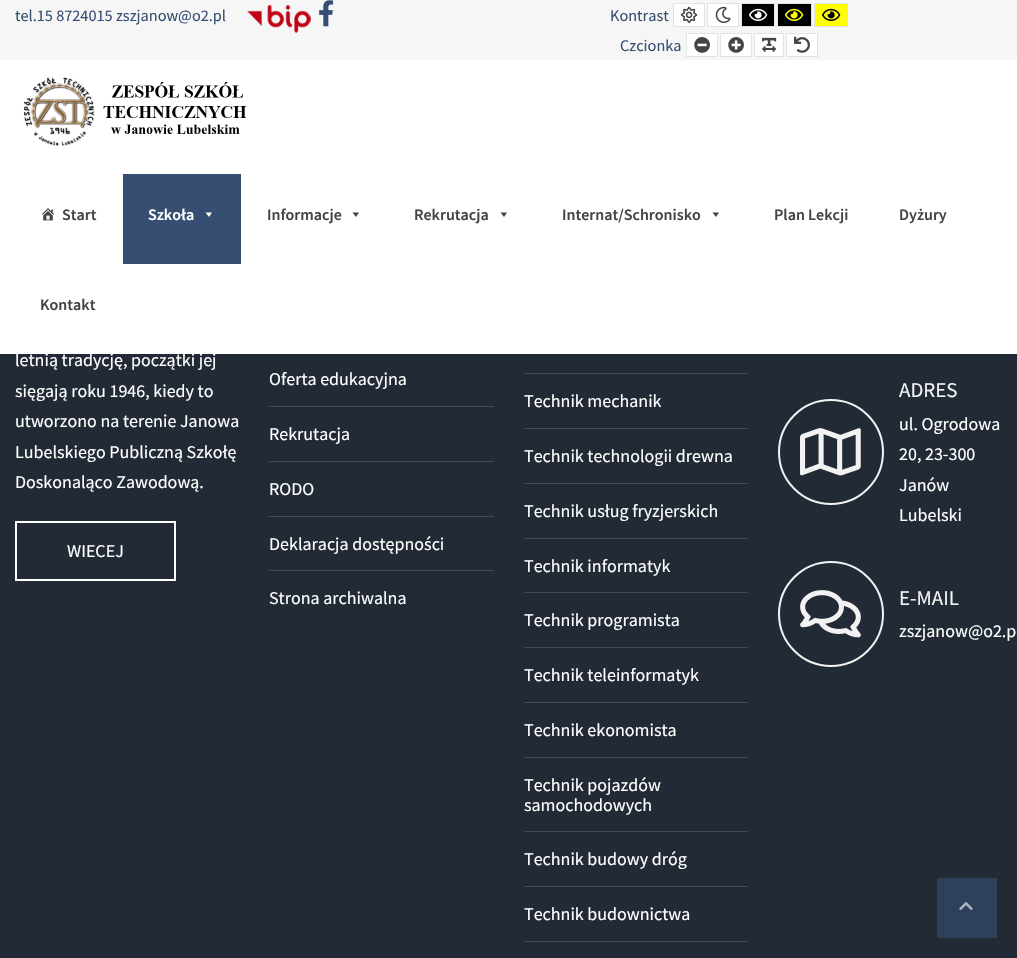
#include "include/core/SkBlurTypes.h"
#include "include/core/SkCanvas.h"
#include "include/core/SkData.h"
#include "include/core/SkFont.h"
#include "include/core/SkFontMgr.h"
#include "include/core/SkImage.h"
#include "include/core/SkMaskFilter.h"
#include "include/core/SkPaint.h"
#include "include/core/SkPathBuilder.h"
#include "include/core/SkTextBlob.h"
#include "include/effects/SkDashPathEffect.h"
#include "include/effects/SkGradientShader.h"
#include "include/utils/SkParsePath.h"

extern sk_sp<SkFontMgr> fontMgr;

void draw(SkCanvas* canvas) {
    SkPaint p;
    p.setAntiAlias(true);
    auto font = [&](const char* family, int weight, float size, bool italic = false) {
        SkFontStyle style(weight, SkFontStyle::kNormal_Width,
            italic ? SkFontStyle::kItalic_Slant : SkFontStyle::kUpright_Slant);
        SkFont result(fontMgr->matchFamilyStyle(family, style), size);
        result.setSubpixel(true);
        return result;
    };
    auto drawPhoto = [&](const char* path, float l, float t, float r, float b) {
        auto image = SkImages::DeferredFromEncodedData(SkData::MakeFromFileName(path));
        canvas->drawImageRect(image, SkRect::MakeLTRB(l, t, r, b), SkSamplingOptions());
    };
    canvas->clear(0xFF222A36);
    p.setColor(0xFFF6F6F6);
    canvas->drawRect(SkRect::MakeLTRB(0, 0, 1017, 60), p);
    auto font1 = font("Source Sans Pro", 400, 16.25f);
    p.setColor(0xFF364E72);
    canvas->drawString("tel.15 8724015 zszjanow@o2.pl", 15, 21, font1, p);
    drawPhoto("media/1.png", 247, 5, 311, 33);
    drawPhoto("media/2.png", 319, 0, 334, 27);
    canvas->drawString("Kontrast", 610, 21, font1, p);
    p.setColor(0xFFFFFFFF);
    canvas->drawRect(SkRect::MakeLTRB(673.5f, 3.5f, 704.5f, 26.5f), p);
    p.setStyle(SkPaint::kStroke_Style);
    p.setStrokeWidth(1);
    p.setColor(0xFFE3E3E3);
    canvas->drawRect(SkRect::MakeLTRB(673.5f, 3.5f, 704.5f, 26.5f), p);
    drawPhoto("media/3.png", 681, 6, 698, 23);
    p.setStyle(SkPaint::kFill_Style);
    p.setColor(0xFFFFFFFF);
    canvas->drawRect(SkRect::MakeLTRB(707.5f, 3.5f, 738.5f, 26.5f), p);
    p.setStyle(SkPaint::kStroke_Style);
    p.setColor(0xFFE3E3E3);
    canvas->drawRect(SkRect::MakeLTRB(707.5f, 3.5f, 738.5f, 26.5f), p);
    drawPhoto("media/4.png", 715, 6, 731, 23);
    p.setStyle(SkPaint::kFill_Style);
    p.setColor(0xFF000000);
    canvas->drawRect(SkRect::MakeLTRB(741.5f, 3.5f, 774.5f, 26.5f), p);
    p.setStyle(SkPaint::kStroke_Style);
    p.setColor(0xFFE3E3E3);
    canvas->drawRect(SkRect::MakeLTRB(741.5f, 3.5f, 774.5f, 26.5f), p);
    drawPhoto("media/5.png", 749, 8, 768, 21);
    p.setStyle(SkPaint::kFill_Style);
    p.setColor(0xFF000000);
    canvas->drawRect(SkRect::MakeLTRB(777.5f, 3.5f, 811.5f, 26.5f), p);
    p.setStyle(SkPaint::kStroke_Style);
    p.setColor(0xFFE3E3E3);
    canvas->drawRect(SkRect::MakeLTRB(777.5f, 3.5f, 811.5f, 26.5f), p);
    drawPhoto("media/6.png", 785, 8, 804, 21);
    p.setStyle(SkPaint::kFill_Style);
    p.setColor(0xFFFFFF00);
    canvas->drawRect(SkRect::MakeLTRB(814.5f, 3.5f, 847.5f, 26.5f), p);
    p.setStyle(SkPaint::kStroke_Style);
    p.setColor(0xFFE3E3E3);
    canvas->drawRect(SkRect::MakeLTRB(814.5f, 3.5f, 847.5f, 26.5f), p);
    drawPhoto("media/7.png", 822, 8, 841, 21);
    p.setStyle(SkPaint::kFill_Style);
    p.setColor(0xFF364E72);
    canvas->drawString("Czcionka", 620, 51, font1, p);
    p.setColor(0xFFFFFFFF);
    canvas->drawRect(SkRect::MakeLTRB(686.5f, 33.5f, 717.5f, 56.5f), p);
    p.setStyle(SkPaint::kStroke_Style);
    p.setColor(0xFFE3E3E3);
    canvas->drawRect(SkRect::MakeLTRB(686.5f, 33.5f, 717.5f, 56.5f), p);
    drawPhoto("media/8.png", 694, 37, 710, 53);
    p.setStyle(SkPaint::kFill_Style);
    p.setColor(0xFFFFFFFF);
    canvas->drawRect(SkRect::MakeLTRB(720.5f, 33.5f, 751.5f, 56.5f), p);
    p.setStyle(SkPaint::kStroke_Style);
    p.setColor(0xFFE3E3E3);
    canvas->drawRect(SkRect::MakeLTRB(720.5f, 33.5f, 751.5f, 56.5f), p);
    drawPhoto("media/9.png", 728, 37, 744, 53);
    p.setStyle(SkPaint::kFill_Style);
    p.setColor(0xFFFFFFFF);
    canvas->drawRect(SkRect::MakeLTRB(754.5f, 33.5f, 783.5f, 56.5f), p);
    p.setStyle(SkPaint::kStroke_Style);
    p.setColor(0xFFE3E3E3);
    canvas->drawRect(SkRect::MakeLTRB(754.5f, 33.5f, 783.5f, 56.5f), p);
    drawPhoto("media/10.png", 762, 37, 777, 52);
    p.setStyle(SkPaint::kFill_Style);
    p.setColor(0xFFFFFFFF);
    canvas->drawRect(SkRect::MakeLTRB(786.5f, 33.5f, 817.5f, 56.5f), p);
    p.setStyle(SkPaint::kStroke_Style);
    p.setColor(0xFFE3E3E3);
    canvas->drawRect(SkRect::MakeLTRB(786.5f, 33.5f, 817.5f, 56.5f), p);
    drawPhoto("media/11.png", 794, 36, 810, 53);
    p.setStyle(SkPaint::kFill_Style);
    p.setColor(0xFFFFFFFF);
    canvas->drawRect(SkRect::MakeLTRB(0, 60, 1017, 354), p);
    drawPhoto("media/12.png", 23, 77, 247, 146);
    drawPhoto("media/13.png", 42, 208, 54, 221);
    auto font2 = font("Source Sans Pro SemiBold", 600, 16);
    p.setColor(0xFF444444);
    canvas->drawString("Start", 62, 220, font2, p);
    p.setColor(0xFF364E72);
    canvas->drawRect(SkRect::MakeLTRB(123, 174, 241, 264), p);
    p.setColor(0xFFFFFFFF);
    canvas->drawString("Szkoła", 148, 220, font2, p);
    canvas->drawPath(SkPathBuilder().moveTo(212, 212.5f).lineTo(209, 217).lineTo(205.5f, 212.5f).close().detach(), p);
    p.setColor(0xFF444444);
    canvas->drawString("Informacje", 267, 220, font2, p);
    canvas->drawPath(SkPathBuilder().moveTo(359, 212.5f).lineTo(356, 217).lineTo(352.5f, 212.5f).close().detach(), p);
    canvas->drawString("Rekrutacja", 414, 220, font2, p);
    canvas->drawPath(SkPathBuilder().moveTo(507, 212.5f).lineTo(504, 217).lineTo(500.5f, 212.5f).close().detach(), p);
    canvas->drawString("Internat/Schronisko", 562, 220, font2, p);
    canvas->drawPath(SkPathBuilder().moveTo(719, 212.5f).lineTo(716, 217).lineTo(712.5f, 212.5f).close().detach(), p);
    {
        const struct { const char* s; float x, y; } items[] = {
            {"Plan Lekcji", 774, 220},
            {"Dyżury", 899, 220},
            {"Kontakt", 40, 310},
        };
        for (auto [s, x, y] : items) {
            canvas->drawString(s, x, y, font2, p);
        }
    }
    auto font3 = font("Source Sans Pro", 400, 18);
    p.setColor(0xFFFFFFFF);
    {
        const struct { const char* s; float x, y; } items[] = {
            {"letnią tradycję, początki jej", 15, 366},
            {"sięgają roku 1946, kiedy to", 15, 397},
            {"utworzono na terenie Janowa", 15, 427},
            {"Lubelskiego Publiczną Szkołę", 15, 458},
            {"Doskonaląco Zawodową.", 15, 488},
        };
        for (auto [s, x, y] : items) {
            canvas->drawString(s, x, y, font3, p);
        }
    }
    p.setStyle(SkPaint::kStroke_Style);
    p.setStrokeWidth(2);
    canvas->drawRect(SkRect::MakeLTRB(16, 522, 175, 580), p);
    p.setStyle(SkPaint::kFill_Style);
    canvas->drawString("WIECEJ", 67, 557, font3, p);
    canvas->drawString("Oferta edukacyjna", 269, 385, font3, p);
    p.setColor(0xFF434A54);
    canvas->drawRect(SkRect::MakeLTRB(269, 406, 494, 407), p);
    p.setColor(0xFFFFFFFF);
    canvas->drawString("Rekrutacja", 269, 440, font3, p);
    p.setColor(0xFF434A54);
    canvas->drawRect(SkRect::MakeLTRB(269, 461, 494, 462), p);
    p.setColor(0xFFFFFFFF);
    canvas->drawString("RODO", 269, 495, font3, p);
    p.setColor(0xFF434A54);
    canvas->drawRect(SkRect::MakeLTRB(269, 516, 494, 517), p);
    p.setColor(0xFFFFFFFF);
    canvas->drawString("Deklaracja dostępności", 269, 550, font3, p);
    p.setColor(0xFF434A54);
    canvas->drawRect(SkRect::MakeLTRB(269, 570, 494, 571), p);
    p.setColor(0xFFFFFFFF);
    canvas->drawString("Strona archiwalna", 269, 604, font3, p);
    p.setColor(0xFF434A54);
    canvas->drawRect(SkRect::MakeLTRB(524, 373, 748, 374), p);
    p.setColor(0xFFFFFFFF);
    canvas->drawString("Technik mechanik", 524, 407, font3, p);
    p.setColor(0xFF434A54);
    canvas->drawRect(SkRect::MakeLTRB(524, 428, 748, 429), p);
    p.setColor(0xFFFFFFFF);
    canvas->drawString("Technik technologii drewna", 524, 462, font3, p);
    p.setColor(0xFF434A54);
    canvas->drawRect(SkRect::MakeLTRB(524, 483, 748, 484), p);
    p.setColor(0xFFFFFFFF);
    canvas->drawString("Technik usług fryzjerskich", 524, 517, font3, p);
    p.setColor(0xFF434A54);
    canvas->drawRect(SkRect::MakeLTRB(524, 538, 748, 539), p);
    p.setColor(0xFFFFFFFF);
    canvas->drawString("Technik informatyk", 524, 572, font3, p);
    p.setColor(0xFF434A54);
    canvas->drawRect(SkRect::MakeLTRB(524, 592, 748, 593), p);
    p.setColor(0xFFFFFFFF);
    canvas->drawString("Technik programista", 524, 626, font3, p);
    p.setColor(0xFF434A54);
    canvas->drawRect(SkRect::MakeLTRB(524, 647, 748, 648), p);
    p.setColor(0xFFFFFFFF);
    canvas->drawString("Technik teleinformatyk", 524, 681, font3, p);
    p.setColor(0xFF434A54);
    canvas->drawRect(SkRect::MakeLTRB(524, 702, 748, 703), p);
    p.setColor(0xFFFFFFFF);
    canvas->drawString("Technik ekonomista", 524, 736, font3, p);
    p.setColor(0xFF434A54);
    canvas->drawRect(SkRect::MakeLTRB(524, 757, 748, 758), p);
    p.setColor(0xFFFFFFFF);
    canvas->drawString("Technik pojazdów", 524, 791, font3, p);
    canvas->drawString("samochodowych", 524, 811, font3, p);
    p.setColor(0xFF434A54);
    canvas->drawRect(SkRect::MakeLTRB(524, 831, 748, 832), p);
    p.setColor(0xFFFFFFFF);
    canvas->drawString("Technik budowy dróg", 524, 865, font3, p);
    p.setColor(0xFF434A54);
    canvas->drawRect(SkRect::MakeLTRB(524, 886, 748, 887), p);
    p.setColor(0xFFFFFFFF);
    canvas->drawString("Technik budownictwa", 524, 920, font3, p);
    p.setColor(0xFF434A54);
    canvas->drawRect(SkRect::MakeLTRB(524, 941, 748, 942), p);
    p.setStyle(SkPaint::kStroke_Style);
    p.setColor(0xFFF2F2F2);
    canvas->drawCircle(831, 452, 52, p);
    drawPhoto("media/14.png", 800, 428, 861, 476);
    auto font4 = font("Source Sans Pro", 400, 21);
    p.setStyle(SkPaint::kFill_Style);
    canvas->drawString("ADRES", 899, 397, font4, p);
    p.setColor(0xFFFFFFFF);
    {
        const struct { const char* s; float x, y; } items[] = {
            {"ul. Ogrodowa", 899, 430},
            {"20, 23-300", 899, 460},
            {"Janów", 899, 491},
            {"Lubelski", 899, 521},
        };
        for (auto [s, x, y] : items) {
            canvas->drawString(s, x, y, font3, p);
        }
    }
    p.setStyle(SkPaint::kStroke_Style);
    p.setColor(0xFFF2F2F2);
    canvas->drawCircle(831, 614, 52, p);
    drawPhoto("media/15.png", 800, 590, 861, 638);
    p.setStyle(SkPaint::kFill_Style);
    canvas->drawString("E-MAIL", 899, 605, font4, p);
    p.setColor(0xFFFFFFFF);
    canvas->drawString("zszjanow@o2.p", 899, 637, font3, p);
    p.setColor(0xFF2E405A);
    canvas->drawRect(SkRect::MakeLTRB(937, 878, 997, 938), p);
    drawPhoto("media/16.png", 959, 902, 973, 911);
}
